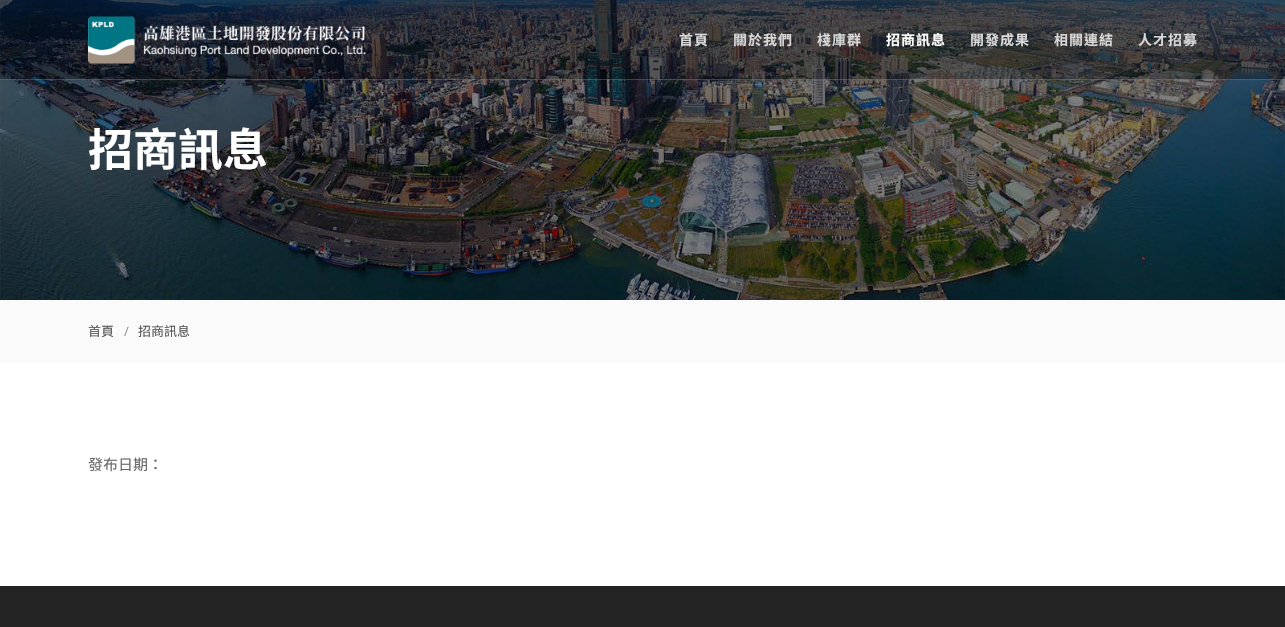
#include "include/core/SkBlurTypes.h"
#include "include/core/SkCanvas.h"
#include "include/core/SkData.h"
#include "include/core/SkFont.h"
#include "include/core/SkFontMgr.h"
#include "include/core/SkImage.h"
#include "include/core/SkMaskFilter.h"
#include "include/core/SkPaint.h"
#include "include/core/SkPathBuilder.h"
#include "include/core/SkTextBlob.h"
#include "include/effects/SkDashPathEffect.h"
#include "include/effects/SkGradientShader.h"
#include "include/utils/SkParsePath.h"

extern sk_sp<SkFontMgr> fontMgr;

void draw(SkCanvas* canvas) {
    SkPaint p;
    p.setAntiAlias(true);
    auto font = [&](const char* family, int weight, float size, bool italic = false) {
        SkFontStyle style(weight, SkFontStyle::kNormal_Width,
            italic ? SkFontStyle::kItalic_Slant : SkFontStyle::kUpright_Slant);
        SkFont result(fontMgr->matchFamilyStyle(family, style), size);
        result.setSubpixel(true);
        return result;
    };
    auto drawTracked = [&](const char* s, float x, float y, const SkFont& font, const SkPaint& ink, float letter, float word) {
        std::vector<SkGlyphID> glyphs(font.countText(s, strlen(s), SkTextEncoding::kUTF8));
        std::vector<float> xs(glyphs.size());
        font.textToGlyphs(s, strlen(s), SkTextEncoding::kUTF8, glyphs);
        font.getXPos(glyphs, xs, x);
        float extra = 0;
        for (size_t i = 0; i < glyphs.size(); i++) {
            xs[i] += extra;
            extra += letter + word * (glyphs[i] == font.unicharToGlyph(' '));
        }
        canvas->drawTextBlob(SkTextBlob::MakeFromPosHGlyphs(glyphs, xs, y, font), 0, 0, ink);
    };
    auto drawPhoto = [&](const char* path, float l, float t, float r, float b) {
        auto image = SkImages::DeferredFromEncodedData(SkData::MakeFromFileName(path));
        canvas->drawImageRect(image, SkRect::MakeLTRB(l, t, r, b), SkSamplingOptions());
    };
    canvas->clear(0xFFFFFFFF);
    drawPhoto("media/2.png", 0, 0, 1285, 300);
    p.setColor(0x4D000000);
    canvas->drawRect(SkRect::MakeLTRB(0, 0, 1285, 80), p);
    p.setColor(0x33FFFFFF);
    canvas->drawRect(SkRect::MakeLTRB(0, 79, 1285, 80), p);
    drawPhoto("media/1.png", 88, 16, 366, 64);
    auto font1 = font("Noto Sans TC", 700, 14);
    p.setColor(0xFFD7D7D8);
    {
        const struct { const char* s; float x, y; } items[] = {
            {"首頁", 679, 45},
            {"關於我們", 733, 45},
            {"棧庫群", 817, 45},
        };
        for (auto [s, x, y] : items) {
            drawTracked(s, x, y, font1, p, 1, 0);
        }
    }
    p.setColor(0xFFFFFFFF);
    drawTracked("招商訊息", 886, 45, font1, p, 1, 0);
    p.setColor(0xFFD7D7D8);
    {
        const struct { const char* s; float x, y; } items[] = {
            {"開發成果", 970, 45},
            {"相關連結", 1054, 45},
            {"人才招募", 1138, 45},
        };
        for (auto [s, x, y] : items) {
            drawTracked(s, x, y, font1, p, 1, 0);
        }
    }
    auto font2 = font("Noto Sans TC", 700, 45);
    p.setColor(0xFFFFFFFF);
    canvas->drawString("招商訊息", 88, 166, font2, p);
    p.setColor(0xFFFAFAFA);
    canvas->drawRect(SkRect::MakeLTRB(0, 300, 1285, 363), p);
    auto font3 = font("Noto Sans TC", 400, 13);
    p.setColor(0xFF555555);
    canvas->drawString("首頁", 88, 336, font3, p);
    auto font4 = font("Open Sans", 400, 13);
    p.setColor(0xFF999999);
    canvas->drawString("/", 124, 336, font4, p);
    p.setColor(0xFF555555);
    canvas->drawString("招商訊息", 138, 336, font3, p);
    auto font5 = font("Noto Sans TC", 400, 15);
    p.setColor(0xFF666666);
    canvas->drawString("發布日期：", 88, 470, font5, p);
    p.setColor(0xFF232323);
    canvas->drawRect(SkRect::MakeLTRB(0, 586, 1285, 627), p);
}
